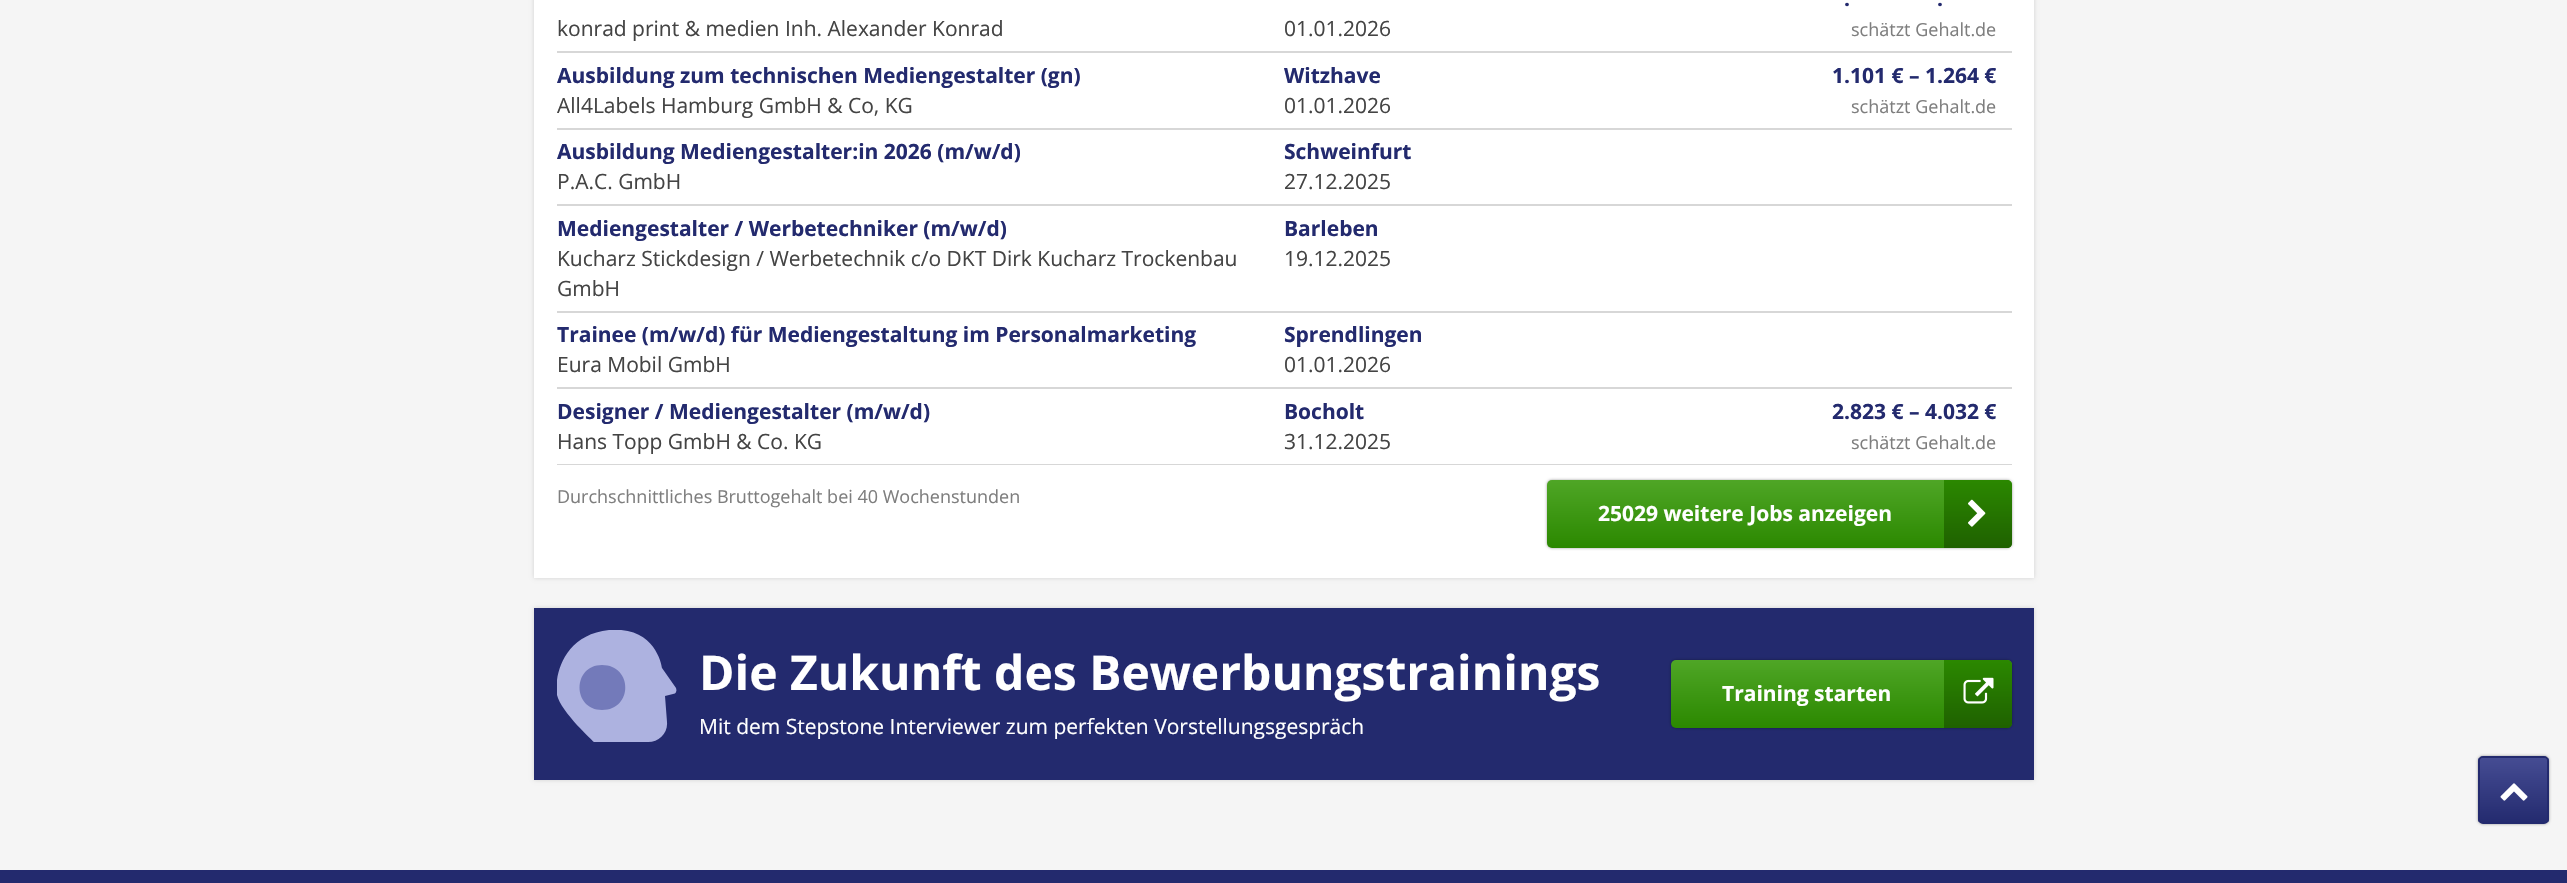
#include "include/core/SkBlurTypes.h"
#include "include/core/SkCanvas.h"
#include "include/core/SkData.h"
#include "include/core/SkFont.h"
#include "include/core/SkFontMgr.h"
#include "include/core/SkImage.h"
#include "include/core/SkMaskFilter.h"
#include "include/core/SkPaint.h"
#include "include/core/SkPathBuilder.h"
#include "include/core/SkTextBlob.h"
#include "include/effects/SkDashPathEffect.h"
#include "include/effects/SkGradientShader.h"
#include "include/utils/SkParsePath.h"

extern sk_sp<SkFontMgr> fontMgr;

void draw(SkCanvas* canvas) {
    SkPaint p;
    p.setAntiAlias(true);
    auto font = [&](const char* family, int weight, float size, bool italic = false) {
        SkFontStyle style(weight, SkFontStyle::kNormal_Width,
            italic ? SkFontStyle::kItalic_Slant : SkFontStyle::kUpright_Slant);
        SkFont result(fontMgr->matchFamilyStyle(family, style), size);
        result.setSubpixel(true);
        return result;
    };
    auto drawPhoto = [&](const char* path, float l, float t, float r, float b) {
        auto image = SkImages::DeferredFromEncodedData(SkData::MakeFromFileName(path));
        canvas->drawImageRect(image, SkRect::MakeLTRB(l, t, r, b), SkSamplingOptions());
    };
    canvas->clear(0xFFF5F5F5);
    p.setColor(0x26000000);
    p.setMaskFilter(SkMaskFilter::MakeBlur(kNormal_SkBlurStyle, 2));
    canvas->drawRect(SkRect::MakeLTRB(534, -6, 2034, 578), p);
    p.setMaskFilter(nullptr);
    p.setColor(0xFFFFFFFF);
    canvas->drawRect(SkRect::MakeLTRB(534, 0, 2034, 578), p);
    p.setColor(0xFFD7D7D7);
    canvas->drawRect(SkRect::MakeLTRB(557, 51, 2012, 53), p);
    auto font1 = font("Open Sans", 400, 21);
    p.setColor(0xFF444444);
    canvas->drawString("konrad print & medien Inh. Alexander Konrad", 557, 36, font1, p);
    canvas->drawString("01.01.2026", 1284, 36, font1, p);
    auto font2 = font("Open Sans", 700, 21);
    p.setColor(0xFF232A6E);
    canvas->drawString(".", 1844, 6, font2, p);
    canvas->drawString(".", 1937, 6, font2, p);
    auto font3 = font("Open Sans", 400, 18);
    p.setColor(0xFF7E7E7E);
    canvas->drawString("schätzt Gehalt.de", 1851, 36, font3, p);
    p.setColor(0xFFD7D7D7);
    canvas->drawRect(SkRect::MakeLTRB(557, 128, 2012, 130), p);
    p.setColor(0xFF232A6E);
    canvas->drawString("Ausbildung zum technischen Mediengestalter (gn)", 557, 83, font2, p);
    p.setColor(0xFF444444);
    canvas->drawString("All4Labels Hamburg GmbH & Co, KG", 557, 113, font1, p);
    p.setColor(0xFF232A6E);
    canvas->drawString("Witzhave", 1284, 83, font2, p);
    p.setColor(0xFF444444);
    canvas->drawString("01.01.2026", 1284, 113, font1, p);
    p.setColor(0xFF232A6E);
    canvas->drawString("1.101 € – 1.264 €", 1832, 83, font2, p);
    p.setColor(0xFF7E7E7E);
    canvas->drawString("schätzt Gehalt.de", 1851, 113, font3, p);
    p.setColor(0xFFD7D7D7);
    canvas->drawRect(SkRect::MakeLTRB(557, 204, 2012, 206), p);
    p.setColor(0xFF232A6E);
    canvas->drawString("Ausbildung Mediengestalter:in 2026 (m/w/d)", 557, 159, font2, p);
    p.setColor(0xFF444444);
    canvas->drawString("P.A.C. GmbH", 557, 189, font1, p);
    p.setColor(0xFF232A6E);
    canvas->drawString("Schweinfurt", 1284, 159, font2, p);
    p.setColor(0xFF444444);
    canvas->drawString("27.12.2025", 1284, 189, font1, p);
    p.setColor(0xFFD7D7D7);
    canvas->drawRect(SkRect::MakeLTRB(557, 311, 2012, 313), p);
    p.setColor(0xFF232A6E);
    canvas->drawString("Mediengestalter / Werbetechniker (m/w/d)", 557, 236, font2, p);
    p.setColor(0xFF444444);
    canvas->drawString("Kucharz Stickdesign / Werbetechnik c/o DKT Dirk Kucharz Trockenbau", 557, 266, font1, p);
    canvas->drawString("GmbH", 557, 296, font1, p);
    p.setColor(0xFF232A6E);
    canvas->drawString("Barleben", 1284, 236, font2, p);
    p.setColor(0xFF444444);
    canvas->drawString("19.12.2025", 1284, 266, font1, p);
    p.setColor(0xFFD7D7D7);
    canvas->drawRect(SkRect::MakeLTRB(557, 387, 2012, 389), p);
    p.setColor(0xFF232A6E);
    canvas->drawString("Trainee (m/w/d) für Mediengestaltung im Personalmarketing", 557, 342, font2, p);
    p.setColor(0xFF444444);
    canvas->drawString("Eura Mobil GmbH", 557, 372, font1, p);
    p.setColor(0xFF232A6E);
    canvas->drawString("Sprendlingen", 1284, 342, font2, p);
    p.setColor(0xFF444444);
    canvas->drawString("01.01.2026", 1284, 372, font1, p);
    p.setColor(0xFFD7D7D7);
    canvas->drawRect(SkRect::MakeLTRB(557, 464, 2012, 465), p);
    p.setColor(0xFF232A6E);
    canvas->drawString("Designer / Mediengestalter (m/w/d)", 557, 419, font2, p);
    p.setColor(0xFF444444);
    canvas->drawString("Hans Topp GmbH & Co. KG", 557, 449, font1, p);
    p.setColor(0xFF232A6E);
    canvas->drawString("Bocholt", 1284, 419, font2, p);
    p.setColor(0xFF444444);
    canvas->drawString("31.12.2025", 1284, 449, font1, p);
    p.setColor(0xFF232A6E);
    canvas->drawString("2.823 € – 4.032 €", 1832, 419, font2, p);
    p.setColor(0xFF7E7E7E);
    canvas->drawString("schätzt Gehalt.de", 1851, 449, font3, p);
    canvas->drawString("Durchschnittliches Bruttogehalt bei 40 Wochenstunden", 557, 503, font3, p);
    p.setColor(0x66000000);
    p.setMaskFilter(SkMaskFilter::MakeBlur(kNormal_SkBlurStyle, 1.5f));
    canvas->drawRoundRect(SkRect::MakeLTRB(1547, 480, 2012, 548), 5, 5, p);
    p.setMaskFilter(nullptr);
    {
        const SkColor colors[] = {0xFF4FA626, 0xFF2B8800};
        const float stops[] = {0, 1};
        const SkPoint ends[] = {{1779, 480}, {1779, 548}};
        p.setShader(SkGradientShader::MakeLinear(ends, colors, stops, 2, SkTileMode::kClamp));
        p.setAlpha(255);
    }
    canvas->drawRoundRect(SkRect::MakeLTRB(1547, 480, 2012, 548), 5, 5, p);
    p.setShader(nullptr);
    p.setColor(0xFFFFFFFF);
    canvas->drawString("25029 weitere Jobs anzeigen", 1598, 521, font2, p);
    {
        const SkColor colors[] = {0xFF2B8800, 0xFF1F6100};
        const float stops[] = {0, 1};
        const SkPoint ends[] = {{1978, 480}, {1978, 548}};
        p.setShader(SkGradientShader::MakeLinear(ends, colors, stops, 2, SkTileMode::kClamp));
        p.setAlpha(255);
    }
    canvas->drawPath(SkPathBuilder().moveTo(1944, 480).lineTo(2007, 480).cubicTo(2010, 480, 2012, 482, 2012, 485).lineTo(2012, 543).cubicTo(2012, 546, 2010, 548, 2007, 548).lineTo(1944, 548).close().detach(), p);
    drawPhoto("media/1.png", 1968, 499, 1986, 527);
    p.setShader(nullptr);
    p.setColor(0x26000000);
    p.setMaskFilter(SkMaskFilter::MakeBlur(kNormal_SkBlurStyle, 2));
    canvas->drawRect(SkRect::MakeLTRB(534, 608, 2034, 780), p);
    p.setMaskFilter(nullptr);
    p.setColor(0xFF232A6E);
    canvas->drawRect(SkRect::MakeLTRB(534, 608, 2034, 780), p);
    canvas->save();
    canvas->clipRect(SkRect::MakeLTRB(557, 630, 677, 743));
    p.setColor(0xFFADB2E0);
    canvas->drawPath(SkPathBuilder().moveTo(609, 630).cubicTo(657, 626, 662, 668, 662, 668).lineTo(676, 688).cubicTo(676, 689, 677, 690, 676, 692).cubicTo(676, 693, 674, 694, 673, 694).lineTo(665, 696).lineTo(667, 722).cubicTo(668, 733, 659, 742, 648, 742).lineTo(594, 742).cubicTo(594, 742, 561, 712, 557, 695).cubicTo(554, 678, 562, 635, 609, 630).close().detach(), p);
    canvas->restore();
    p.setColor(0xFF737ABA);
    canvas->drawPath(SkPathBuilder().moveTo(602, 710).cubicTo(572, 710, 572, 665, 602, 665).cubicTo(633, 665, 633, 710, 602, 710).close().detach(), p);
    auto font4 = font("Open Sans", 700, 48);
    p.setColor(0xFFFFFFFF);
    canvas->drawString("Die Zukunft des Bewerbungstrainings", 699, 690, font4, p);
    canvas->drawString("Mit dem Stepstone Interviewer zum perfekten Vorstellungsgespräch", 699, 734, font1, p);
    p.setColor(0x66000000);
    p.setMaskFilter(SkMaskFilter::MakeBlur(kNormal_SkBlurStyle, 1.5f));
    canvas->drawRoundRect(SkRect::MakeLTRB(1671, 660, 2012, 728), 5, 5, p);
    p.setMaskFilter(nullptr);
    {
        const SkColor colors[] = {0xFF4FA626, 0xFF2B8800};
        const float stops[] = {0, 1};
        const SkPoint ends[] = {{1841, 660}, {1841, 728}};
        p.setShader(SkGradientShader::MakeLinear(ends, colors, stops, 2, SkTileMode::kClamp));
        p.setAlpha(255);
    }
    canvas->drawRoundRect(SkRect::MakeLTRB(1671, 660, 2012, 728), 5, 5, p);
    p.setShader(nullptr);
    p.setColor(0xFFFFFFFF);
    canvas->drawString("Training starten", 1722, 701, font2, p);
    {
        const SkColor colors[] = {0xFF2B8800, 0xFF1F6100};
        const float stops[] = {0, 1};
        const SkPoint ends[] = {{1978, 660}, {1978, 728}};
        p.setShader(SkGradientShader::MakeLinear(ends, colors, stops, 2, SkTileMode::kClamp));
        p.setAlpha(255);
    }
    canvas->drawPath(SkPathBuilder().moveTo(1944, 660).lineTo(2007, 660).cubicTo(2010, 660, 2012, 662, 2012, 665).lineTo(2012, 723).cubicTo(2012, 726, 2010, 728, 2007, 728).lineTo(1944, 728).close().detach(), p);
    drawPhoto("media/2.png", 1963, 677, 1994, 704);
    p.setShader(nullptr);
    p.setColor(0x66000000);
    p.setMaskFilter(SkMaskFilter::MakeBlur(kNormal_SkBlurStyle, 1.5f));
    canvas->drawRoundRect(SkRect::MakeLTRB(2478, 756, 2549, 824), 5, 5, p);
    p.setMaskFilter(nullptr);
    canvas->save();
    canvas->clipPath(SkPathBuilder().moveTo(2483, 756).lineTo(2544, 756).cubicTo(2547, 756, 2549, 758, 2549, 761).lineTo(2549, 819).cubicTo(2549, 822, 2547, 824, 2544, 824).lineTo(2483, 824).cubicTo(2480, 824, 2478, 822, 2478, 819).lineTo(2478, 761).cubicTo(2478, 758, 2480, 756, 2483, 756).close().detach(), true);
    {
        const SkColor colors[] = {0xFF464D94, 0xFF232A6E};
        const float stops[] = {0, 1};
        const SkPoint ends[] = {{2513, 758}, {2513, 822}};
        p.setShader(SkGradientShader::MakeLinear(ends, colors, stops, 2, SkTileMode::kClamp));
        p.setAlpha(255);
    }
    canvas->drawRect(SkRect::MakeLTRB(2478, 758, 2549, 822), p);
    canvas->restore();
    p.setStyle(SkPaint::kStroke_Style);
    p.setStrokeWidth(2);
    p.setShader(nullptr);
    p.setColor(0xFF232A6E);
    canvas->drawRoundRect(SkRect::MakeLTRB(2479, 757, 2548, 823), 4, 4, p);
    canvas->save();
    canvas->clipPath(SkPathBuilder().moveTo(2483, 758).lineTo(2544, 758).cubicTo(2545.5f, 758, 2547, 759.5f, 2547, 761).lineTo(2547, 819).cubicTo(2547, 820.5f, 2545.5f, 822, 2544, 822).lineTo(2483, 822).cubicTo(2481.5f, 822, 2480, 820.5f, 2480, 819).lineTo(2480, 761).cubicTo(2480, 759.5f, 2481.5f, 758, 2483, 758).close().detach(), true);
    p.setStyle(SkPaint::kFill_Style);
    {
        const SkColor colors[] = {0xFF464D94, 0xFF232A6E};
        const float stops[] = {0, 1};
        const SkPoint ends[] = {{2513, 756}, {2513, 824}};
        p.setShader(SkGradientShader::MakeLinear(ends, colors, stops, 2, SkTileMode::kClamp));
        p.setAlpha(255);
    }
    canvas->drawPath(SkPathBuilder().moveTo(2485, 756).lineTo(2547, 756).lineTo(2547, 824).lineTo(2485, 824).cubicTo(2482, 824, 2480, 822, 2480, 819).lineTo(2480, 761).cubicTo(2480, 758, 2482, 756, 2485, 756).close().detach(), p);
    canvas->restore();
    drawPhoto("media/3.png", 2500, 783, 2528, 801);
    p.setShader(nullptr);
    p.setColor(0xFF232A6E);
    canvas->drawRect(SkRect::MakeLTRB(0, 870, 2567, 883), p);
}
